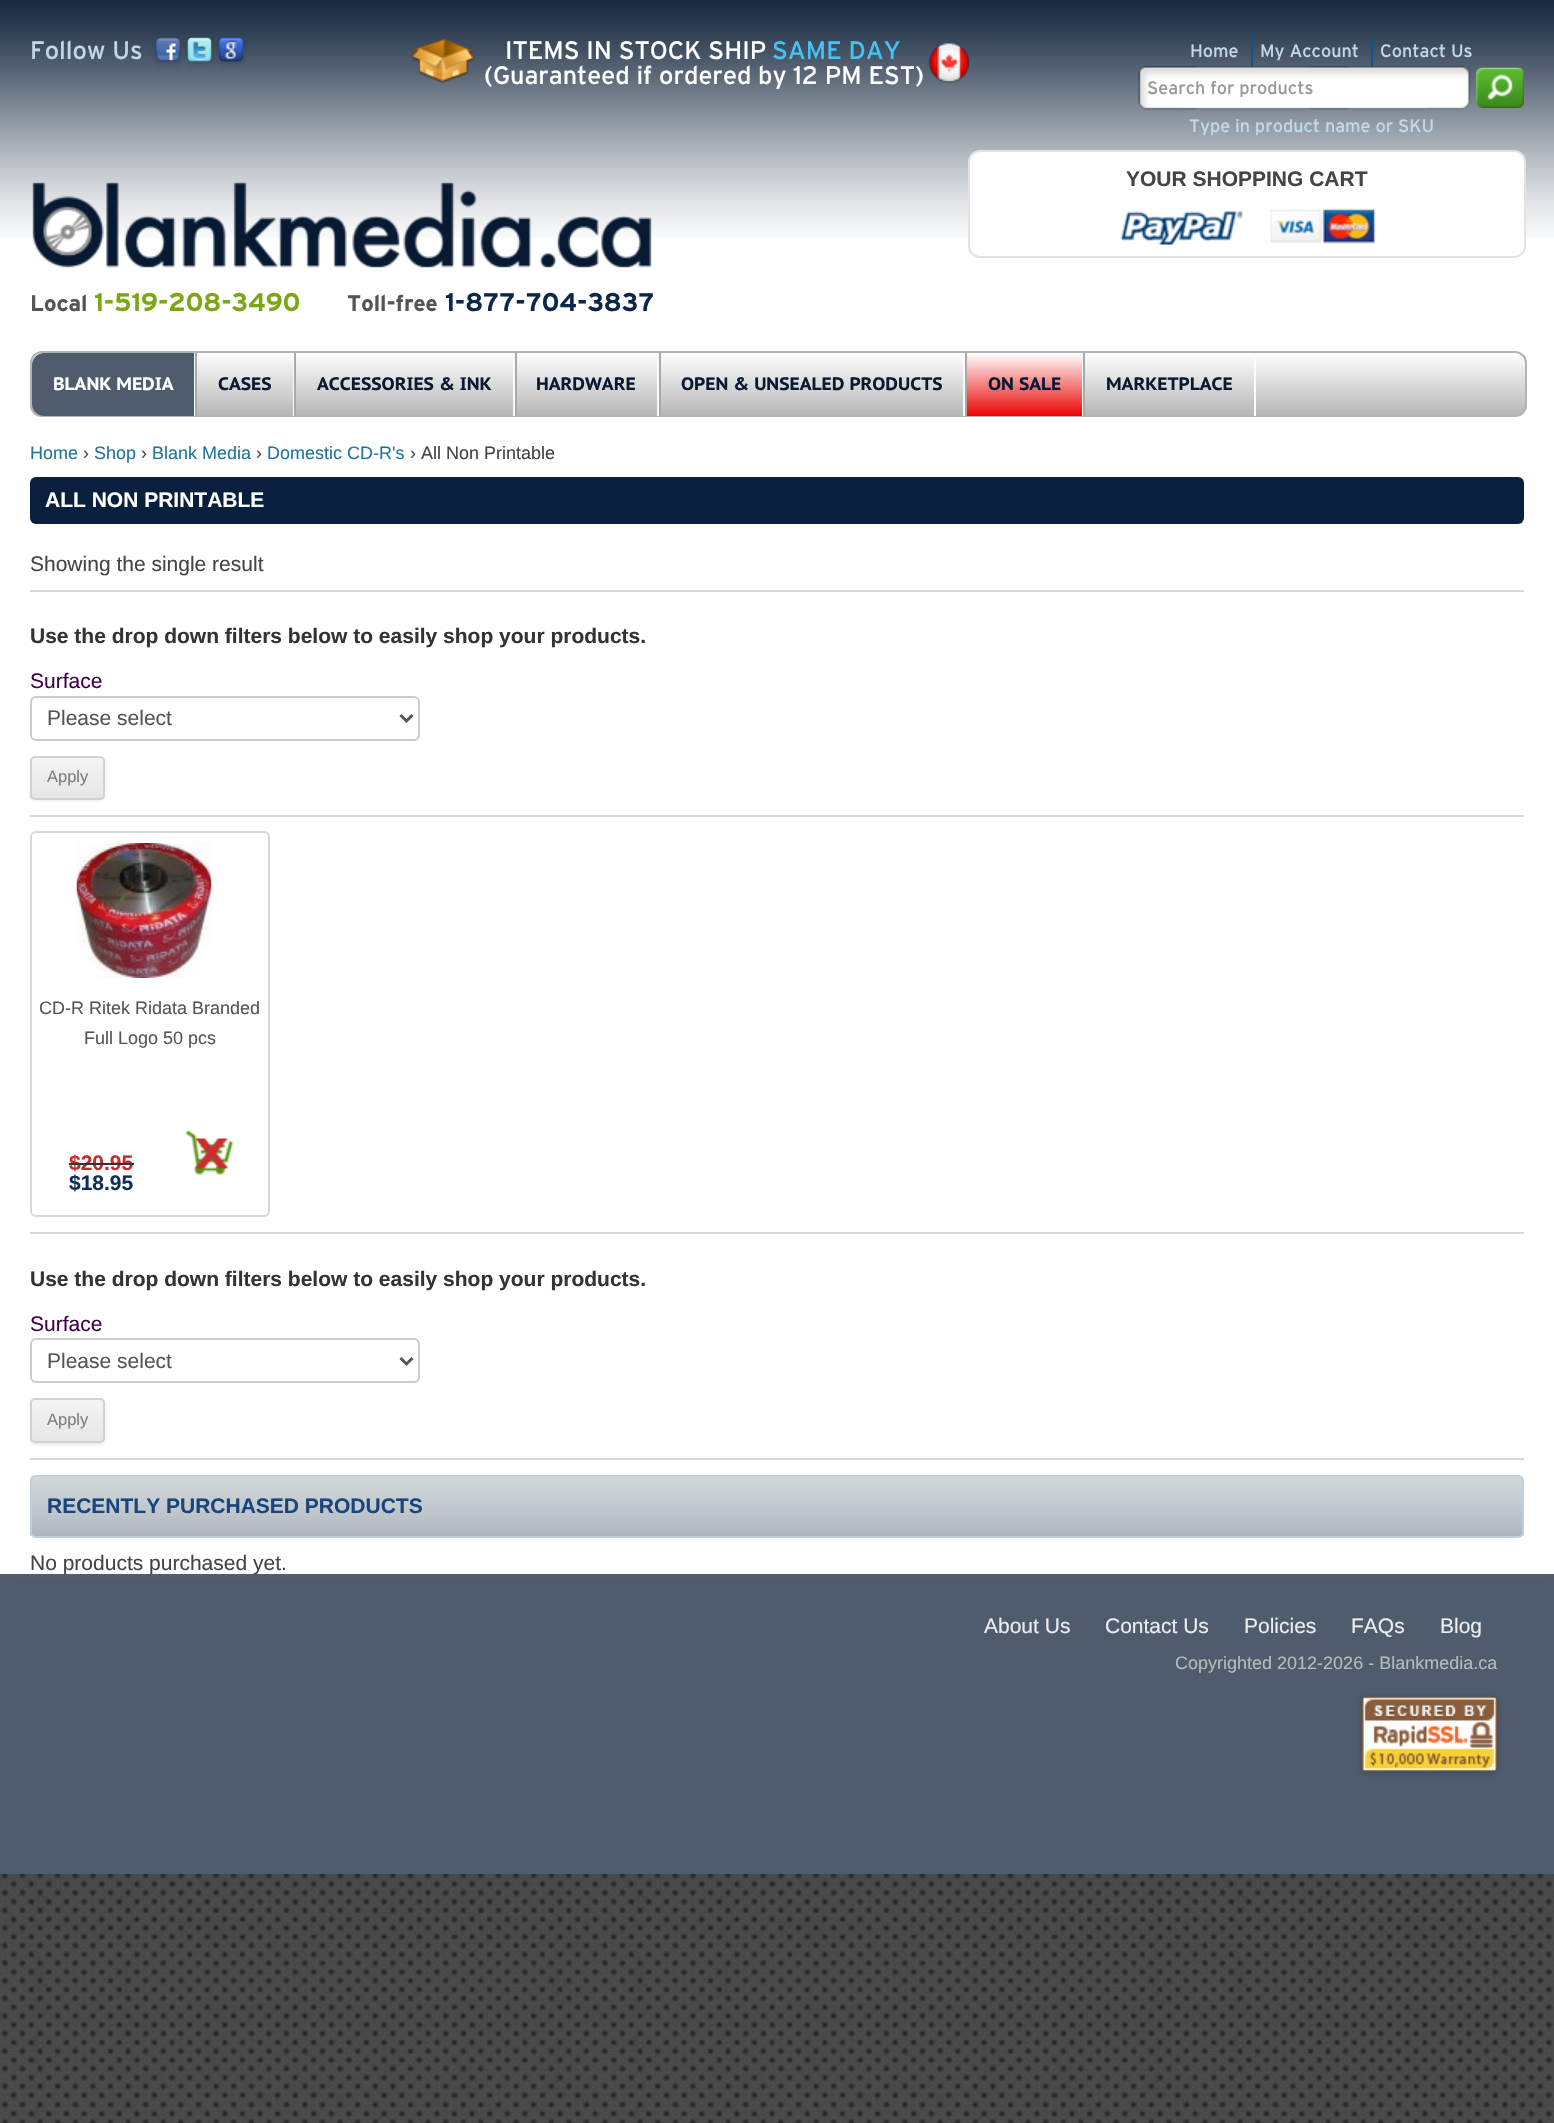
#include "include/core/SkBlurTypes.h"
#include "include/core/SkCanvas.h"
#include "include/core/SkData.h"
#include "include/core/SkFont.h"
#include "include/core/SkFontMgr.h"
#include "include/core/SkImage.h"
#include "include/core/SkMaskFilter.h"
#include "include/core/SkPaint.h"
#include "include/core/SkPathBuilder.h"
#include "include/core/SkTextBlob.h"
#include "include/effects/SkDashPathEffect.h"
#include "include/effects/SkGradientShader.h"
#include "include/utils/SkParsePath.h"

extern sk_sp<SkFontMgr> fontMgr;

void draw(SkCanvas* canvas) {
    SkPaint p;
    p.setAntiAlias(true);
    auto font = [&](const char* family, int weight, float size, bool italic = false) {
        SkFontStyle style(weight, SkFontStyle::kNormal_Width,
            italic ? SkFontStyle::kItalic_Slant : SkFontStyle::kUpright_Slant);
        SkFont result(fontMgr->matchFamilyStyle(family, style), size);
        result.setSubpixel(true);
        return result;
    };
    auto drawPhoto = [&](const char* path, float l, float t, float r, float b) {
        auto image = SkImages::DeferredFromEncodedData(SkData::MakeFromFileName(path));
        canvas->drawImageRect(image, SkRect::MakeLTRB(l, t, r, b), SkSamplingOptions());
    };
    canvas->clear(0xFFFFFFFF);
    drawPhoto("media/1.png", 0, 1874, 1554, 2123);
    p.setColor(0xFF4E5C6D);
    canvas->drawRect(SkRect::MakeLTRB(0, 1574, 1554, 1874), p);
    p.setColor(0x4D646464);
    p.setMaskFilter(SkMaskFilter::MakeBlur(kNormal_SkBlurStyle, 4.5f));
    canvas->drawRect(SkRect::MakeLTRB(0, 3, 1554, 1577), p);
    p.setMaskFilter(nullptr);
    p.setColor(0xFFFFFFFF);
    canvas->drawRect(SkRect::MakeLTRB(0, 0, 1554, 1574), p);
    drawPhoto("media/2.png", 0, 0, 1554, 238);
    auto font1 = font("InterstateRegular", 400, 25.25f);
    p.setColor(0xFFC0D9EA);
    canvas->drawString("Follow Us", 30, 59, font1, p);
    p.setColor(0x33000000);
    p.setMaskFilter(SkMaskFilter::MakeBlur(kNormal_SkBlurStyle, 3));
    canvas->drawRoundRect(SkRect::MakeLTRB(156, 39, 180, 63), 5, 5, p);
    p.setMaskFilter(nullptr);
    drawPhoto("media/3.png", 156, 37, 180, 62);
    p.setMaskFilter(SkMaskFilter::MakeBlur(kNormal_SkBlurStyle, 3));
    canvas->drawRoundRect(SkRect::MakeLTRB(188, 39, 212, 63), 5, 5, p);
    p.setMaskFilter(nullptr);
    drawPhoto("media/4.png", 187, 37, 212, 62);
    p.setMaskFilter(SkMaskFilter::MakeBlur(kNormal_SkBlurStyle, 3));
    canvas->drawRoundRect(SkRect::MakeLTRB(219, 39, 243, 63), 5, 5, p);
    p.setMaskFilter(nullptr);
    drawPhoto("media/5.png", 219, 37, 243, 62);
    drawPhoto("media/6.png", 411, 38, 475, 84);
    p.setColor(0xFFFFFFFF);
    canvas->drawString("ITEMS IN STOCK SHIP", 505, 59, font1, p);
    p.setColor(0xFF44C4F3);
    canvas->drawString("SAME DAY", 772, 59, font1, p);
    p.setColor(0xFFFFFFFF);
    canvas->drawString("(Guaranteed if ordered by 12 PM EST)", 484, 84, font1, p);
    drawPhoto("media/7.png", 928, 42, 970, 84);
    auto font2 = font("InterstateRegular", 400, 18);
    p.setColor(0xFFC0D9EA);
    canvas->drawString("Home", 1190, 57, font2, p);
    p.setColor(0xFF095688);
    canvas->drawRect(SkRect::MakeLTRB(1251, 36, 1253, 66), p);
    p.setColor(0xFFC0D9EA);
    canvas->drawString("My Account", 1260, 57, font2, p);
    p.setColor(0xFF095688);
    canvas->drawRect(SkRect::MakeLTRB(1371, 36, 1373, 66), p);
    p.setColor(0xFFC0D9EA);
    canvas->drawString("Contact Us", 1380, 57, font2, p);
    drawPhoto("media/8.png", 1138, 66, 1471, 110);
    p.setColor(0xFF999999);
    canvas->drawString("Search for products", 1147, 94, font2, p);
    drawPhoto("media/9.png", 1476, 67, 1524, 108);
    p.setColor(0xFFC0D9EA);
    canvas->drawString("Type in product name or SKU", 1189, 132, font2, p);
    p.setColor(0xFFFFFFFF);
    canvas->drawRoundRect(SkRect::MakeLTRB(969, 151, 1525, 257), 11, 11, p);
    p.setStyle(SkPaint::kStroke_Style);
    p.setStrokeWidth(2);
    p.setColor(0xFFE3E3E3);
    canvas->drawRoundRect(SkRect::MakeLTRB(969, 151, 1525, 257), 11, 11, p);
    auto font3 = font("Liberation Sans", 700, 21);
    p.setStyle(SkPaint::kFill_Style);
    p.setColor(0xFF444444);
    canvas->drawString("YOUR SHOPPING CART", 1126, 186, font3, p);
    drawPhoto("media/10.png", 1120, 208, 1376, 245);
    drawPhoto("media/11.png", 32, 182, 652, 268);
    auto font4 = font("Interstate", 700, 22.5f);
    p.setColor(0xFF555555);
    canvas->drawString("Local", 30, 311, font4, p);
    auto font5 = font("Interstate", 700, 25.5f);
    p.setColor(0xFF7CA714);
    canvas->drawString("1-519-208-3490", 94, 311, font5, p);
    p.setColor(0xFF555555);
    canvas->drawString("Toll-free", 347, 311, font4, p);
    p.setColor(0xFF0B284C);
    canvas->drawString("1-877-704-3837", 445, 311, font5, p);
    canvas->save();
    canvas->clipPath(SkPathBuilder().moveTo(42, 351).lineTo(1515, 351).cubicTo(1521.5f, 351, 1527, 356.5f, 1527, 363).lineTo(1527, 405).cubicTo(1527, 411.5f, 1521.5f, 417, 1515, 417).lineTo(42, 417).cubicTo(35.5f, 417, 30, 411.5f, 30, 405).lineTo(30, 363).cubicTo(30, 356.5f, 35.5f, 351, 42, 351).close().detach(), true);
    {
        const SkColor colors[] = {0xFFFFFFFF, 0xFFB6B6B6};
        const float stops[] = {0, 1};
        const SkPoint ends[] = {{779, 352}, {779, 416}};
        p.setShader(SkGradientShader::MakeLinear(ends, colors, stops, 2, SkTileMode::kClamp));
        p.setAlpha(255);
    }
    canvas->drawRect(SkRect::MakeLTRB(30, 353, 1527, 416), p);
    canvas->restore();
    p.setStyle(SkPaint::kStroke_Style);
    p.setShader(nullptr);
    p.setColor(0xFFB3B3B3);
    canvas->drawRoundRect(SkRect::MakeLTRB(31, 352, 1526, 416), 11, 11, p);
    p.setStyle(SkPaint::kFill_Style);
    p.setColor(0xFFFBFBFB);
    canvas->drawRect(SkRect::MakeLTRB(194, 353, 195, 416), p);
    p.setColor(0xFF4E5C6D);
    canvas->drawPath(SkPathBuilder().moveTo(44, 353).lineTo(194, 353).lineTo(194, 416).lineTo(44, 416).cubicTo(37.5f, 416, 32, 410.5f, 32, 404).lineTo(32, 365).cubicTo(32, 358.5f, 37.5f, 353, 44, 353).close().detach(), p);
    auto font6 = font("PT Sans Caption", 700, 18);
    p.setColor(0xFFFFFFFF);
    canvas->drawString("BLANK MEDIA", 53, 390, font6, p);
    p.setColor(0xFFFBFBFB);
    canvas->drawRect(SkRect::MakeLTRB(293, 353, 294, 416), p);
    p.setColor(0xFFA9A9A9);
    canvas->drawRect(SkRect::MakeLTRB(195, 353, 197, 416), p);
    p.setColor(0xFF071A32);
    canvas->drawString("CASES", 218, 390, font6, p);
    p.setColor(0xFFFBFBFB);
    canvas->drawRect(SkRect::MakeLTRB(513, 353, 515, 416), p);
    p.setColor(0xFFA9A9A9);
    canvas->drawRect(SkRect::MakeLTRB(294, 353, 296, 416), p);
    p.setColor(0xFF071A32);
    canvas->drawString("ACCESSORIES & INK", 317, 390, font6, p);
    p.setColor(0xFFFBFBFB);
    canvas->drawRect(SkRect::MakeLTRB(657, 353, 659, 416), p);
    p.setColor(0xFFA9A9A9);
    canvas->drawRect(SkRect::MakeLTRB(515, 353, 517, 416), p);
    p.setColor(0xFF071A32);
    canvas->drawString("HARDWARE", 536, 390, font6, p);
    p.setColor(0xFFFBFBFB);
    canvas->drawRect(SkRect::MakeLTRB(963, 353, 965, 416), p);
    p.setColor(0xFFA9A9A9);
    canvas->drawRect(SkRect::MakeLTRB(659, 353, 661, 416), p);
    p.setColor(0xFF071A32);
    canvas->drawString("OPEN & UNSEALED PRODUCTS", 681, 390, font6, p);
    {
        const SkColor colors[] = {0xFFFFFFFF, 0xFFEA0303};
        const float stops[] = {0, 1};
        const SkPoint ends[] = {{1024, 353}, {1024, 416}};
        p.setShader(SkGradientShader::MakeLinear(ends, colors, stops, 2, SkTileMode::kClamp));
        p.setAlpha(255);
    }
    canvas->drawRect(SkRect::MakeLTRB(967, 354, 1082, 416), p);
    p.setShader(nullptr);
    p.setColor(0xFFFBFBFB);
    canvas->drawRect(SkRect::MakeLTRB(1082, 353, 1083, 416), p);
    p.setColor(0xFFA9A9A9);
    canvas->drawRect(SkRect::MakeLTRB(965, 353, 967, 416), p);
    p.setColor(0xFF071A32);
    canvas->drawString("ON SALE", 988, 390, font6, p);
    p.setColor(0xFFFBFBFB);
    canvas->drawRect(SkRect::MakeLTRB(1254, 353, 1256, 416), p);
    p.setColor(0xFFA9A9A9);
    canvas->drawRect(SkRect::MakeLTRB(1083, 353, 1085, 416), p);
    p.setColor(0xFF071A32);
    canvas->drawString("MARKETPLACE", 1106, 390, font6, p);
    auto font7 = font("Liberation Sans", 400, 18);
    p.setColor(0xFF21759B);
    canvas->drawString("Home", 30, 459, font7, p);
    p.setColor(0xFF444444);
    canvas->drawString("›", 83, 459, font7, p);
    p.setColor(0xFF21759B);
    canvas->drawString("Shop", 94, 459, font7, p);
    p.setColor(0xFF444444);
    canvas->drawString("›", 141, 459, font7, p);
    p.setColor(0xFF21759B);
    canvas->drawString("Blank Media", 152, 459, font7, p);
    p.setColor(0xFF444444);
    canvas->drawString("›", 256, 459, font7, p);
    p.setColor(0xFF21759B);
    canvas->drawString("Domestic CD-R's", 267, 459, font7, p);
    p.setColor(0xFF444444);
    canvas->drawString("› All Non Printable", 410, 459, font7, p);
    p.setColor(0xFF081F3E);
    canvas->drawRoundRect(SkRect::MakeLTRB(30, 477, 1524, 524), 6, 6, p);
    p.setColor(0xFFFFFFFF);
    canvas->drawString("ALL NON PRINTABLE", 45, 507, font3, p);
    auto font8 = font("Liberation Sans", 400, 21);
    p.setColor(0xFF444444);
    canvas->drawString("Showing the single result", 30, 571, font8, p);
    p.setColor(0xFFD8D8D8);
    canvas->drawRect(SkRect::MakeLTRB(30, 590, 1524, 592), p);
    canvas->drawRect(SkRect::MakeLTRB(30, 815, 1524, 817), p);
    p.setColor(0xFF333333);
    canvas->drawString("Use the drop down filters below to easily shop your products.", 30, 643, font3, p);
    p.setColor(0xFF42024B);
    canvas->drawString("Surface", 30, 688, font8, p);
    p.setStyle(SkPaint::kStroke_Style);
    p.setColor(0xFFCCCCCC);
    canvas->drawRoundRect(SkRect::MakeLTRB(31, 697, 419, 740), 5, 5, p);
    p.setStrokeWidth(3);
    p.setColor(0xFF555555);
    canvas->drawPath(SkPathBuilder().moveTo(400.5f, 715).lineTo(406.5f, 721).lineTo(412.5f, 715).detach(), p);
    p.setStyle(SkPaint::kFill_Style);
    canvas->drawString("Please select", 47, 725, font8, p);
    p.setColor(0x1A404040);
    p.setMaskFilter(SkMaskFilter::MakeBlur(kNormal_SkBlurStyle, 1.5f));
    canvas->drawRoundRect(SkRect::MakeLTRB(30, 758, 105, 801), 5, 5, p);
    p.setMaskFilter(nullptr);
    canvas->save();
    canvas->clipPath(SkPathBuilder().moveTo(35, 756).lineTo(100, 756).cubicTo(103, 756, 105, 758, 105, 761).lineTo(105, 795).cubicTo(105, 798, 103, 800, 100, 800).lineTo(35, 800).cubicTo(32, 800, 30, 798, 30, 795).lineTo(30, 761).cubicTo(30, 758, 32, 756, 35, 756).close().detach(), true);
    {
        const SkColor colors[] = {0xFFF4F4F4, 0xFFE6E6E6};
        const float stops[] = {0, 1};
        const SkPoint ends[] = {{68, 758}, {68, 798}};
        p.setShader(SkGradientShader::MakeLinear(ends, colors, stops, 2, SkTileMode::kClamp));
        p.setAlpha(255);
    }
    canvas->drawRect(SkRect::MakeLTRB(30, 758, 105, 798), p);
    canvas->restore();
    p.setStyle(SkPaint::kStroke_Style);
    p.setStrokeWidth(2);
    p.setShader(nullptr);
    p.setColor(0xFFD2D2D2);
    canvas->drawRoundRect(SkRect::MakeLTRB(31, 757, 104, 799), 4, 4, p);
    auto font9 = font("Liberation Sans", 400, 16.5f);
    p.setStyle(SkPaint::kFill_Style);
    p.setColor(0xFF7C7C7C);
    canvas->drawString("Apply", 47, 782, font9, p);
    p.setStyle(SkPaint::kStroke_Style);
    p.setColor(0xFFD8D8D8);
    canvas->drawRoundRect(SkRect::MakeLTRB(31, 832, 269, 1216), 5, 5, p);
    drawPhoto("media/12.png", 76, 843, 212, 978);
    p.setStyle(SkPaint::kFill_Style);
    p.setColor(0xFF555555);
    canvas->drawString("CD-R Ritek Ridata Branded", 39, 1014, font7, p);
    canvas->drawString("Full Logo 50 pcs", 84, 1044, font7, p);
    p.setColor(0xFFC82B2C);
    canvas->drawString("$20.95", 69, 1170, font3, p);
    p.setColor(0xFF333333);
    canvas->drawRect(SkRect::MakeLTRB(69, 1163, 134, 1165), p);
    p.setColor(0xFF0C2F5C);
    canvas->drawString("$18.95", 69, 1190, font3, p);
    drawPhoto("media/13.png", 185, 1130, 233, 1175);
    p.setColor(0xFFD8D8D8);
    canvas->drawRect(SkRect::MakeLTRB(30, 1232, 1524, 1234), p);
    canvas->drawRect(SkRect::MakeLTRB(30, 1458, 1524, 1460), p);
    p.setColor(0xFF333333);
    canvas->drawString("Use the drop down filters below to easily shop your products.", 30, 1286, font3, p);
    p.setColor(0xFF42024B);
    canvas->drawString("Surface", 30, 1331, font8, p);
    p.setStyle(SkPaint::kStroke_Style);
    p.setColor(0xFFCCCCCC);
    canvas->drawRoundRect(SkRect::MakeLTRB(31, 1339, 419, 1382), 5, 5, p);
    p.setStrokeWidth(3);
    p.setColor(0xFF555555);
    canvas->drawPath(SkPathBuilder().moveTo(400.5f, 1358).lineTo(406.5f, 1364).lineTo(412.5f, 1358).detach(), p);
    p.setStyle(SkPaint::kFill_Style);
    canvas->drawString("Please select", 47, 1368, font8, p);
    p.setColor(0x1A404040);
    p.setMaskFilter(SkMaskFilter::MakeBlur(kNormal_SkBlurStyle, 1.5f));
    canvas->drawRoundRect(SkRect::MakeLTRB(30, 1400, 105, 1445), 5, 5, p);
    p.setMaskFilter(nullptr);
    canvas->save();
    canvas->clipPath(SkPathBuilder().moveTo(35, 1398).lineTo(100, 1398).cubicTo(103, 1398, 105, 1400, 105, 1403).lineTo(105, 1438).cubicTo(105, 1441, 103, 1443, 100, 1443).lineTo(35, 1443).cubicTo(32, 1443, 30, 1441, 30, 1438).lineTo(30, 1403).cubicTo(30, 1400, 32, 1398, 35, 1398).close().detach(), true);
    {
        const SkColor colors[] = {0xFFF4F4F4, 0xFFE6E6E6};
        const float stops[] = {0, 1};
        const SkPoint ends[] = {{68, 1400}, {68, 1442}};
        p.setShader(SkGradientShader::MakeLinear(ends, colors, stops, 2, SkTileMode::kClamp));
        p.setAlpha(255);
    }
    canvas->drawRect(SkRect::MakeLTRB(30, 1400, 105, 1442), p);
    canvas->restore();
    p.setStyle(SkPaint::kStroke_Style);
    p.setStrokeWidth(2);
    p.setShader(nullptr);
    p.setColor(0xFFD2D2D2);
    canvas->drawRoundRect(SkRect::MakeLTRB(31, 1399, 104, 1442), 4, 4, p);
    p.setStyle(SkPaint::kFill_Style);
    p.setColor(0xFF7C7C7C);
    canvas->drawString("Apply", 47, 1425, font9, p);
    canvas->save();
    canvas->clipPath(SkPathBuilder().moveTo(36, 1475).lineTo(1518, 1475).cubicTo(1521.5f, 1475, 1524, 1477.5f, 1524, 1481).lineTo(1524, 1532).cubicTo(1524, 1535.5f, 1521.5f, 1538, 1518, 1538).lineTo(36, 1538).cubicTo(32.5f, 1538, 30, 1535.5f, 30, 1532).lineTo(30, 1481).cubicTo(30, 1477.5f, 32.5f, 1475, 36, 1475).close().detach(), true);
    {
        const SkColor colors[] = {0xFFD2D9DC, 0xFFC3CACF, 0xFFAEB5BC};
        const float stops[] = {0, 0.5f, 1};
        const SkPoint ends[] = {{777, 1476}, {777, 1536}};
        p.setShader(SkGradientShader::MakeLinear(ends, colors, stops, 3, SkTileMode::kClamp));
        p.setAlpha(255);
    }
    canvas->drawRect(SkRect::MakeLTRB(30, 1476, 1524, 1536), p);
    canvas->restore();
    p.setStyle(SkPaint::kStroke_Style);
    p.setShader(nullptr);
    p.setColor(0xFFC0CFDE);
    canvas->drawRoundRect(SkRect::MakeLTRB(31, 1476, 1523, 1537), 5, 5, p);
    p.setStyle(SkPaint::kFill_Style);
    p.setColor(0xFF1A457C);
    canvas->drawString("RECENTLY PURCHASED PRODUCTS", 47, 1513, font3, p);
    canvas->save();
    canvas->clipRect(SkRect::MakeLTRB(0, 0, 1554, 1574));
    p.setColor(0xFF444444);
    canvas->drawString("No products purchased yet.", 30, 1570, font8, p);
    canvas->restore();
    p.setColor(0xFFECEDEF);
    {
        const struct { const char* s; float x, y; } items[] = {
            {"About Us", 984, 1633},
            {"Contact Us", 1105, 1633},
            {"Policies", 1244, 1633},
            {"FAQs", 1351, 1633},
            {"Blog", 1440, 1633},
        };
        for (auto [s, x, y] : items) {
            canvas->drawString(s, x, y, font8, p);
        }
    }
    p.setColor(0xFFB9BCB5);
    canvas->drawString("Copyrighted 2012-2026 - Blankmedia.ca", 1175, 1669, font7, p);
    p.setColor(0x33000000);
    p.setMaskFilter(SkMaskFilter::MakeBlur(kNormal_SkBlurStyle, 3));
    canvas->drawRoundRect(SkRect::MakeLTRB(1362, 1698, 1497, 1773), 5, 5, p);
    p.setMaskFilter(nullptr);
    drawPhoto("media/14.png", 1362, 1696, 1497, 1772);
}
